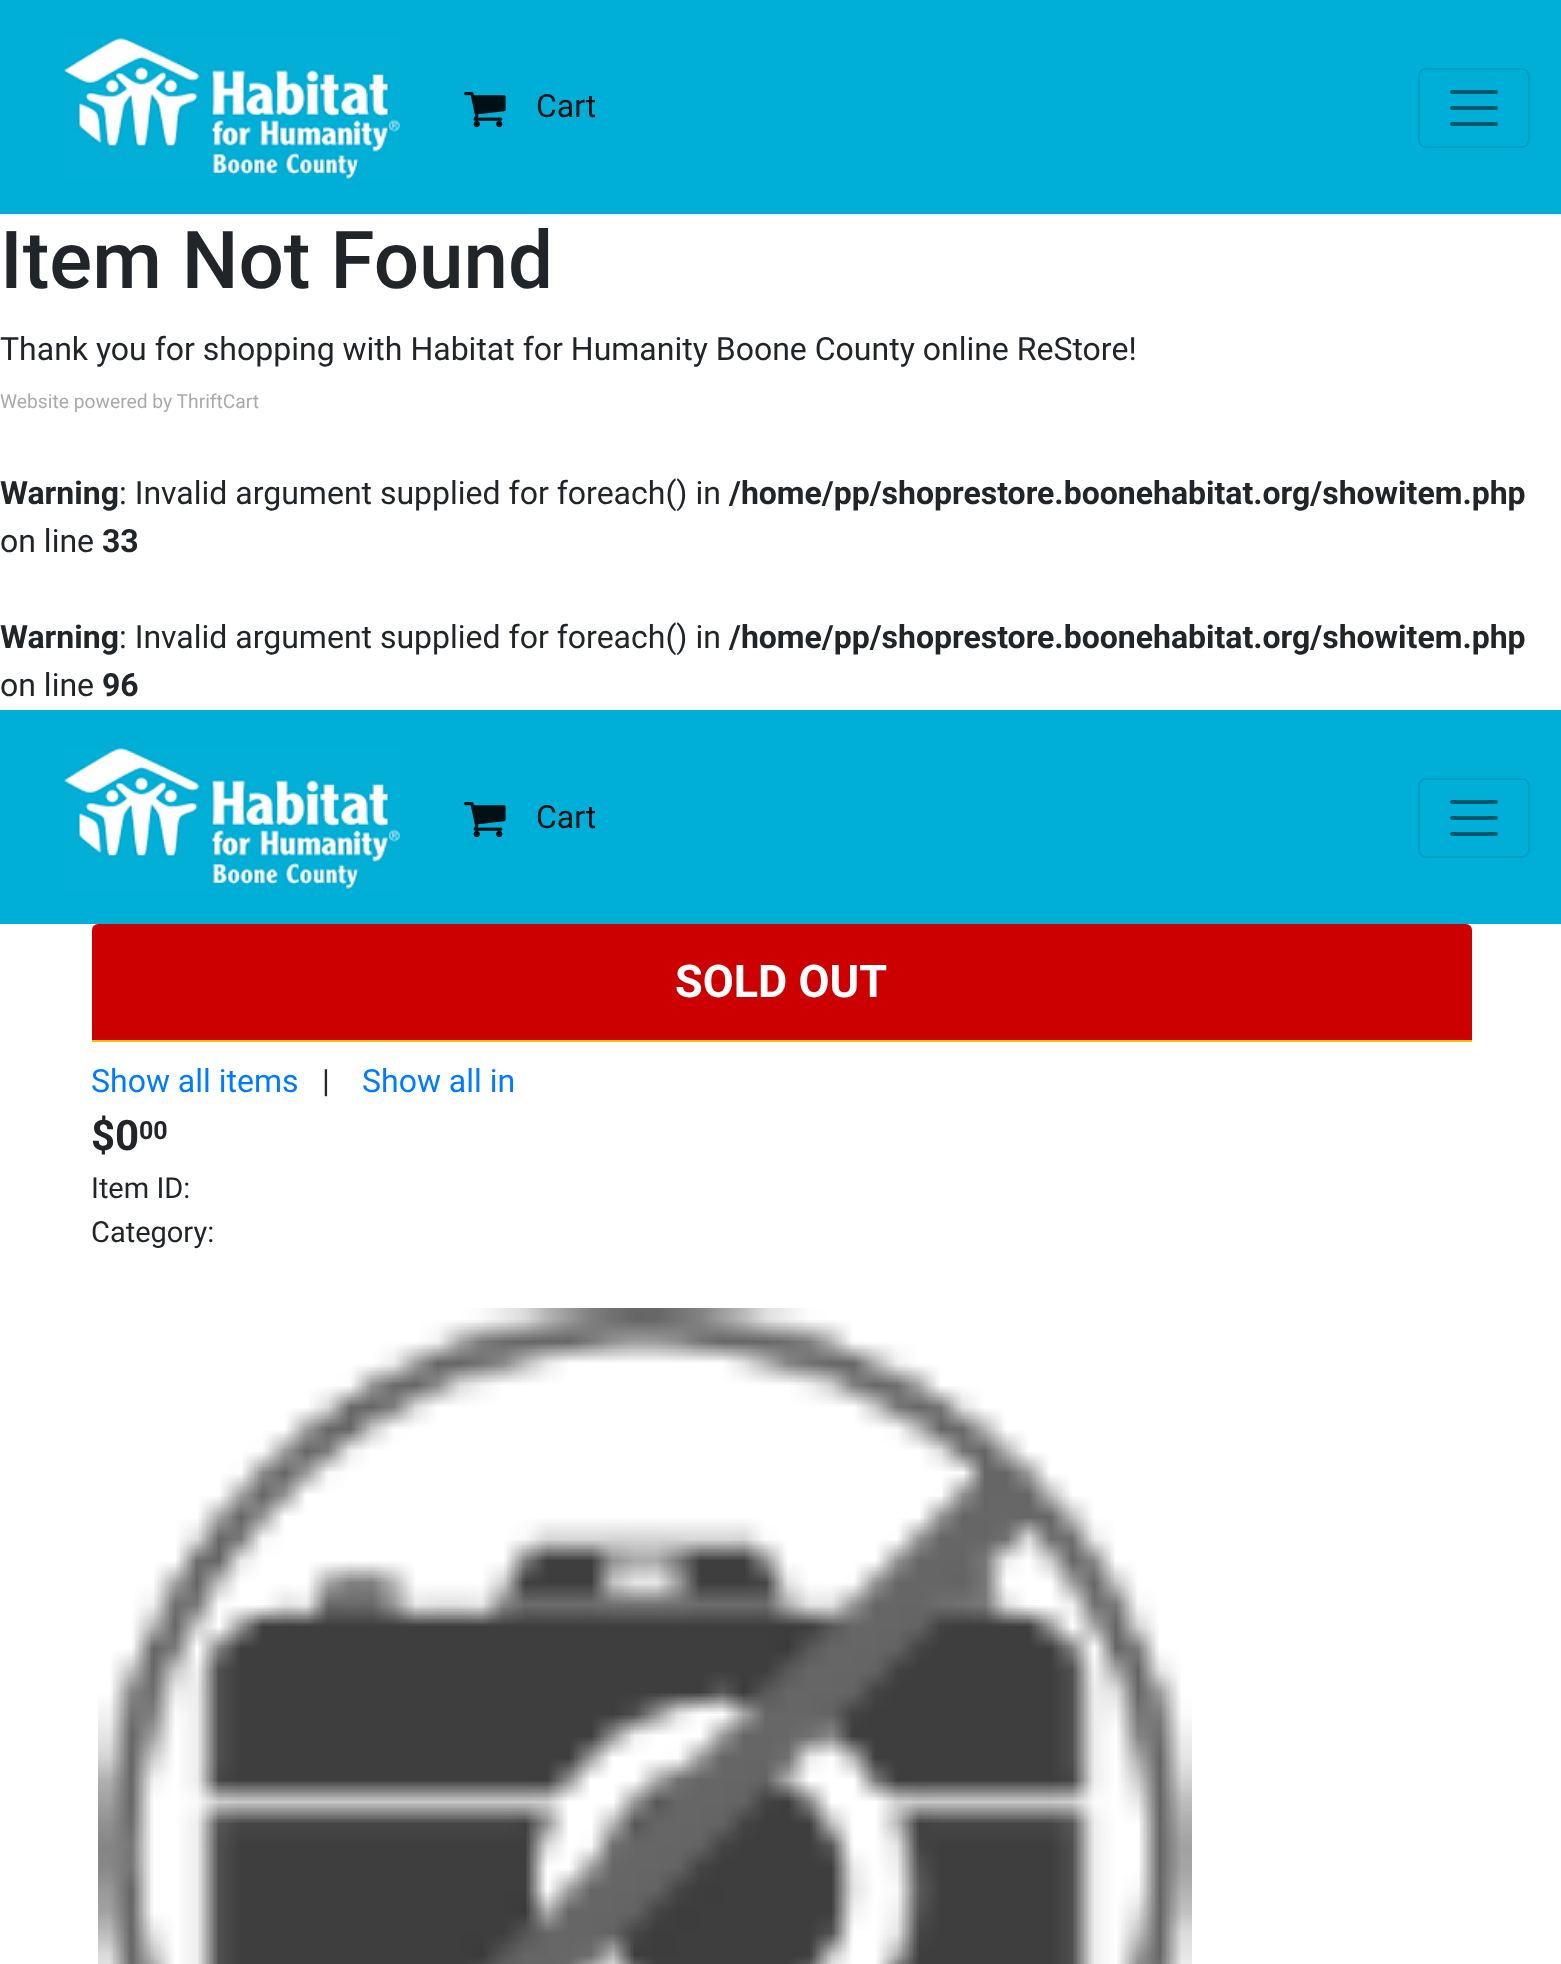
<!DOCTYPE html>
<meta charset="utf-8">
<style>body { margin: 0 } canvas { display: block }</style>
<canvas id="canvas" width="1561" height="1964"></canvas>
<img id="img1" src="images/1.png" hidden>
<img id="img2" src="images/2.png" hidden>
<img id="img3" src="images/3.png" hidden>
<script>
window.onload = function () {
    const canvas = document.getElementById('canvas');
    const context = canvas.getContext('2d');
    context.miterLimit = 4;
    context.fontKerning = 'normal';

    context.fillStyle = 'rgb(255, 255, 255)';
    context.fillRect(0, 0, 1561, 1964);
    context.fillStyle = 'rgb(0, 175, 215)';
    context.fillRect(0, 0, 1561, 214);
    context.drawImage(document.getElementById('img1'), 63, 37, 338, 143);
    context.drawImage(document.getElementById('img2'), 464, 92, 42, 36);
    context.beginPath();
    context.roundRect(1419, 69, 110, 78, 7);
    context.strokeStyle = 'rgb(0, 158, 194)';
    context.lineWidth = 2;
    context.stroke();
    context.beginPath();
    context.moveTo(1452, 92);
    context.lineTo(1496, 92);
    context.moveTo(1452, 108);
    context.lineTo(1496, 108);
    context.moveTo(1452, 124);
    context.lineTo(1496, 124);
    context.strokeStyle = 'rgb(0, 88, 108)';
    context.lineWidth = 4;
    context.lineCap = 'round';
    context.stroke();
    context.fillRect(0, 710, 1561, 214);
    context.drawImage(document.getElementById('img1'), 63, 747, 338, 143);
    context.drawImage(document.getElementById('img2'), 464, 802, 42, 36);
    context.beginPath();
    context.roundRect(1419, 779, 110, 78, 7);
    context.strokeStyle = 'rgb(0, 158, 194)';
    context.lineWidth = 2;
    context.stroke();
    context.beginPath();
    context.moveTo(1452, 802);
    context.lineTo(1496, 802);
    context.moveTo(1452, 818);
    context.lineTo(1496, 818);
    context.moveTo(1452, 834);
    context.lineTo(1496, 834);
    context.strokeStyle = 'rgb(0, 88, 108)';
    context.lineWidth = 4;
    context.stroke();
    context.fillStyle = 'rgb(204, 0, 0)';
    context.beginPath();
    context.roundRect(92, 924, 1380, 118, [6, 6, 0, 0]);
    context.fill();
    context.fillStyle = 'rgb(255, 193, 7)';
    context.fillRect(92, 1040, 1380, 2);
    context.drawImage(document.getElementById('img3'), 98, 1308, 1094, 656);
    context.font = '32px Roboto';
    context.fillStyle = 'rgb(0, 18, 22)';
    context.fillText('Cart', 536, 117);
    context.font = '500 80px Roboto';
    context.fillStyle = 'rgb(33, 37, 41)';
    context.fillText('Item Not Found', 0, 288);
    context.font = '32px Roboto';
    context.fillText('Thank you for shopping with Habitat for Humanity Boone County online ReStore!', 0, 360);
    context.font = '19.25px Roboto';
    context.fillStyle = 'rgb(170, 170, 170)';
    context.fillText('Website powered by ThriftCart', 0, 408);
    context.font = 'bold 32px Roboto';
    context.fillStyle = 'rgb(33, 37, 41)';
    context.fillText('Warning', 0, 504);
    context.font = '32px Roboto';
    context.fillText(': Invalid argument supplied for foreach() in', 119, 504);
    context.font = 'bold 32px Roboto';
    context.fillText('/home/pp/shoprestore.boonehabitat.org/showitem.php', 729, 504);
    context.font = '32px Roboto';
    context.fillText('on line', 0, 552);
    context.font = 'bold 32px Roboto';
    context.fillText('33', 102, 552);
    context.fillText('Warning', 0, 648);
    context.font = '32px Roboto';
    context.fillText(': Invalid argument supplied for foreach() in', 119, 648);
    context.font = 'bold 32px Roboto';
    context.fillText('/home/pp/shoprestore.boonehabitat.org/showitem.php', 729, 648);
    context.font = '32px Roboto';
    context.fillText('on line', 0, 696);
    context.font = 'bold 32px Roboto';
    context.fillText('96', 102, 696);
    context.font = '32px Roboto';
    context.fillStyle = 'rgb(0, 18, 22)';
    context.fillText('Cart', 536, 828);
    context.font = 'bold 45px Roboto';
    context.fillStyle = 'rgb(255, 255, 255)';
    context.fillText('SOLD OUT', 675, 997);
    context.font = '32px Roboto';
    context.fillStyle = 'rgb(0, 123, 255)';
    context.fillText('Show all items', 91, 1092);
    context.fillStyle = 'rgb(33, 37, 41)';
    context.fillText('|', 322, 1092);
    context.fillStyle = 'rgb(0, 123, 255)';
    context.fillText('Show all in', 362, 1092);
    context.font = 'bold 42px Roboto';
    context.fillStyle = 'rgb(33, 37, 41)';
    context.fillText('$0', 91, 1150);
    context.font = 'bold 25px Roboto';
    context.fillText('00', 139, 1139);
    context.font = '29px Roboto';
    context.fillText('Item ID:', 91, 1198);
    context.fillText('Category:', 91, 1242);
};
</script>
